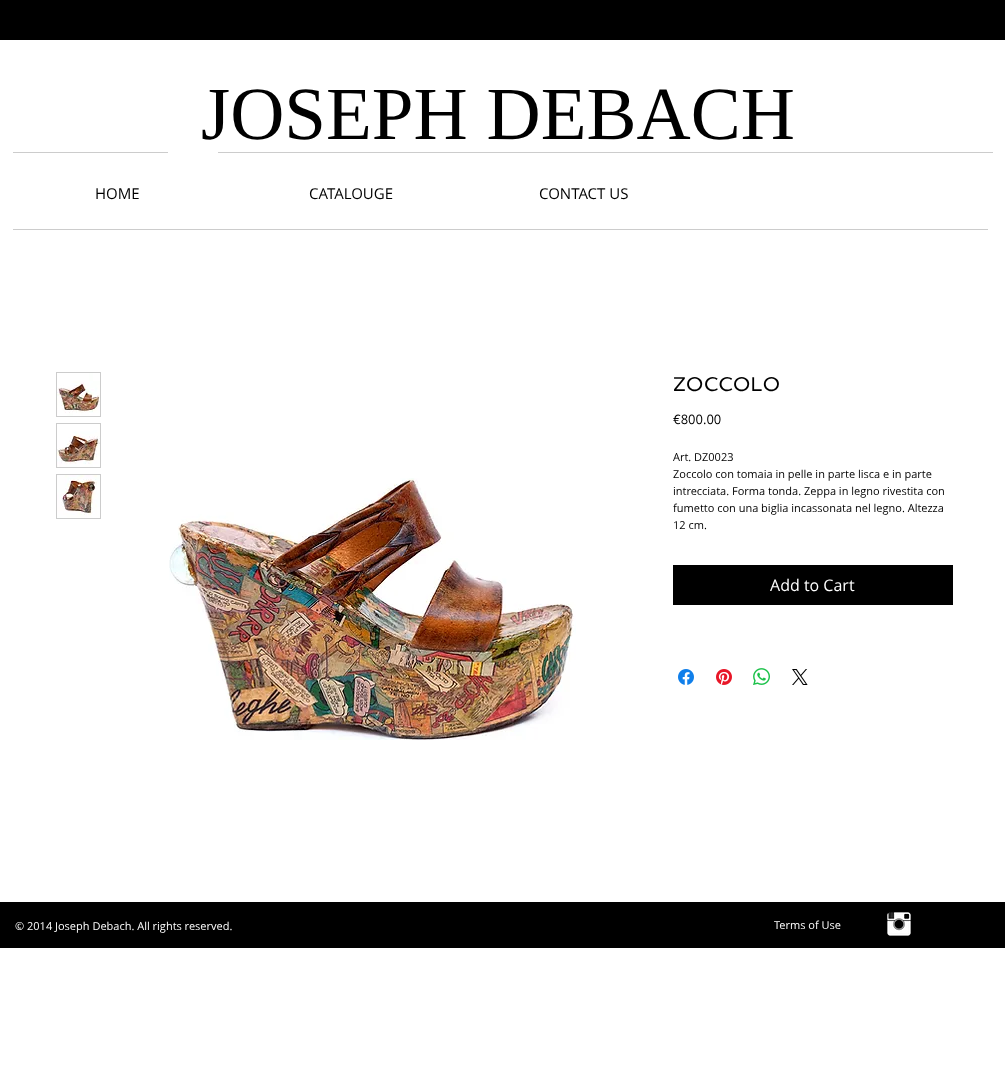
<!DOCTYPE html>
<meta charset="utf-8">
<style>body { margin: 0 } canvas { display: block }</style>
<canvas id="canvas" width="1005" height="1087"></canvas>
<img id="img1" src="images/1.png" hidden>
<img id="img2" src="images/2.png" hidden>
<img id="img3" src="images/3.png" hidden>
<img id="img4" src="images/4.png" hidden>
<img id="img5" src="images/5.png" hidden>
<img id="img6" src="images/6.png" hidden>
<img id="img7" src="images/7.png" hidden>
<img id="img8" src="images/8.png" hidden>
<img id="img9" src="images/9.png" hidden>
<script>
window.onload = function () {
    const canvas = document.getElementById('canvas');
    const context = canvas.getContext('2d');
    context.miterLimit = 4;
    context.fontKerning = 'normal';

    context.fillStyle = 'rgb(255, 255, 255)';
    context.fillRect(0, 0, 1005, 1087);
    context.fillStyle = 'rgb(0, 0, 0)';
    context.fillRect(0, 0, 1005, 40);
    context.fillStyle = 'rgb(204, 204, 204)';
    context.fillRect(13, 152, 155, 1);
    context.fillRect(218, 152, 775, 1);
    context.fillRect(13, 229, 975, 1);
    context.fillRect(56, 372, 45, 45);
    context.drawImage(document.getElementById('img1'), 57, 373, 43, 43);
    context.fillRect(56, 423, 45, 45);
    context.drawImage(document.getElementById('img2'), 57, 424, 43, 43);
    context.fillRect(56, 474, 45, 45);
    context.drawImage(document.getElementById('img3'), 57, 475, 43, 43);
    context.drawImage(document.getElementById('img4'), 169, 478, 407, 262);
    context.fillStyle = 'rgb(0, 0, 0)';
    context.fillRect(673, 565, 280, 40);
    context.drawImage(document.getElementById('img5'), 678, 669, 16, 16);
    context.drawImage(document.getElementById('img6'), 716, 669, 16, 16);
    context.drawImage(document.getElementById('img7'), 753, 668, 17, 17);
    context.drawImage(document.getElementById('img8'), 792, 669, 16, 16);
    context.fillRect(0, 902, 1005, 46);
    context.drawImage(document.getElementById('img9'), 887, 912, 24, 24);
    context.font = '75px Liberation Serif';
    context.fillText('JOSEPH DEBACH', 201, 139);
    context.font = '15px Open Sans';
    context.fillText('HOME', 95, 199);
    context.fillText('CATALOUGE', 309, 199);
    context.fillText('CONTACT US', 539, 199);
    context.font = '20px Spinnaker';
    context.fillText('ZOCCOLO', 673, 391);
    context.font = '13px Open Sans';
    context.fillText('€800.00', 673, 424);
    context.font = '11px Open Sans';
    context.fillText('Art. DZ0023', 673, 461);
    context.fillText('Zoccolo con tomaia in pelle in parte lisca e in parte', 673, 478);
    context.fillText('intrecciata. Forma tonda. Zeppa in legno rivestita con', 673, 495);
    context.fillText('fumetto con una biglia incassonata nel legno. Altezza', 673, 512);
    context.fillText('12 cm.', 673, 529);
    context.font = '16px Open Sans';
    context.fillStyle = 'rgb(255, 255, 255)';
    context.fillText('Add to Cart', 770, 591);
    context.font = '11px Open Sans';
    context.fillText('© 2014 Joseph Debach. All rights reserved.', 15, 930);
    context.fillText('Terms of Use', 774, 929);
};
</script>
